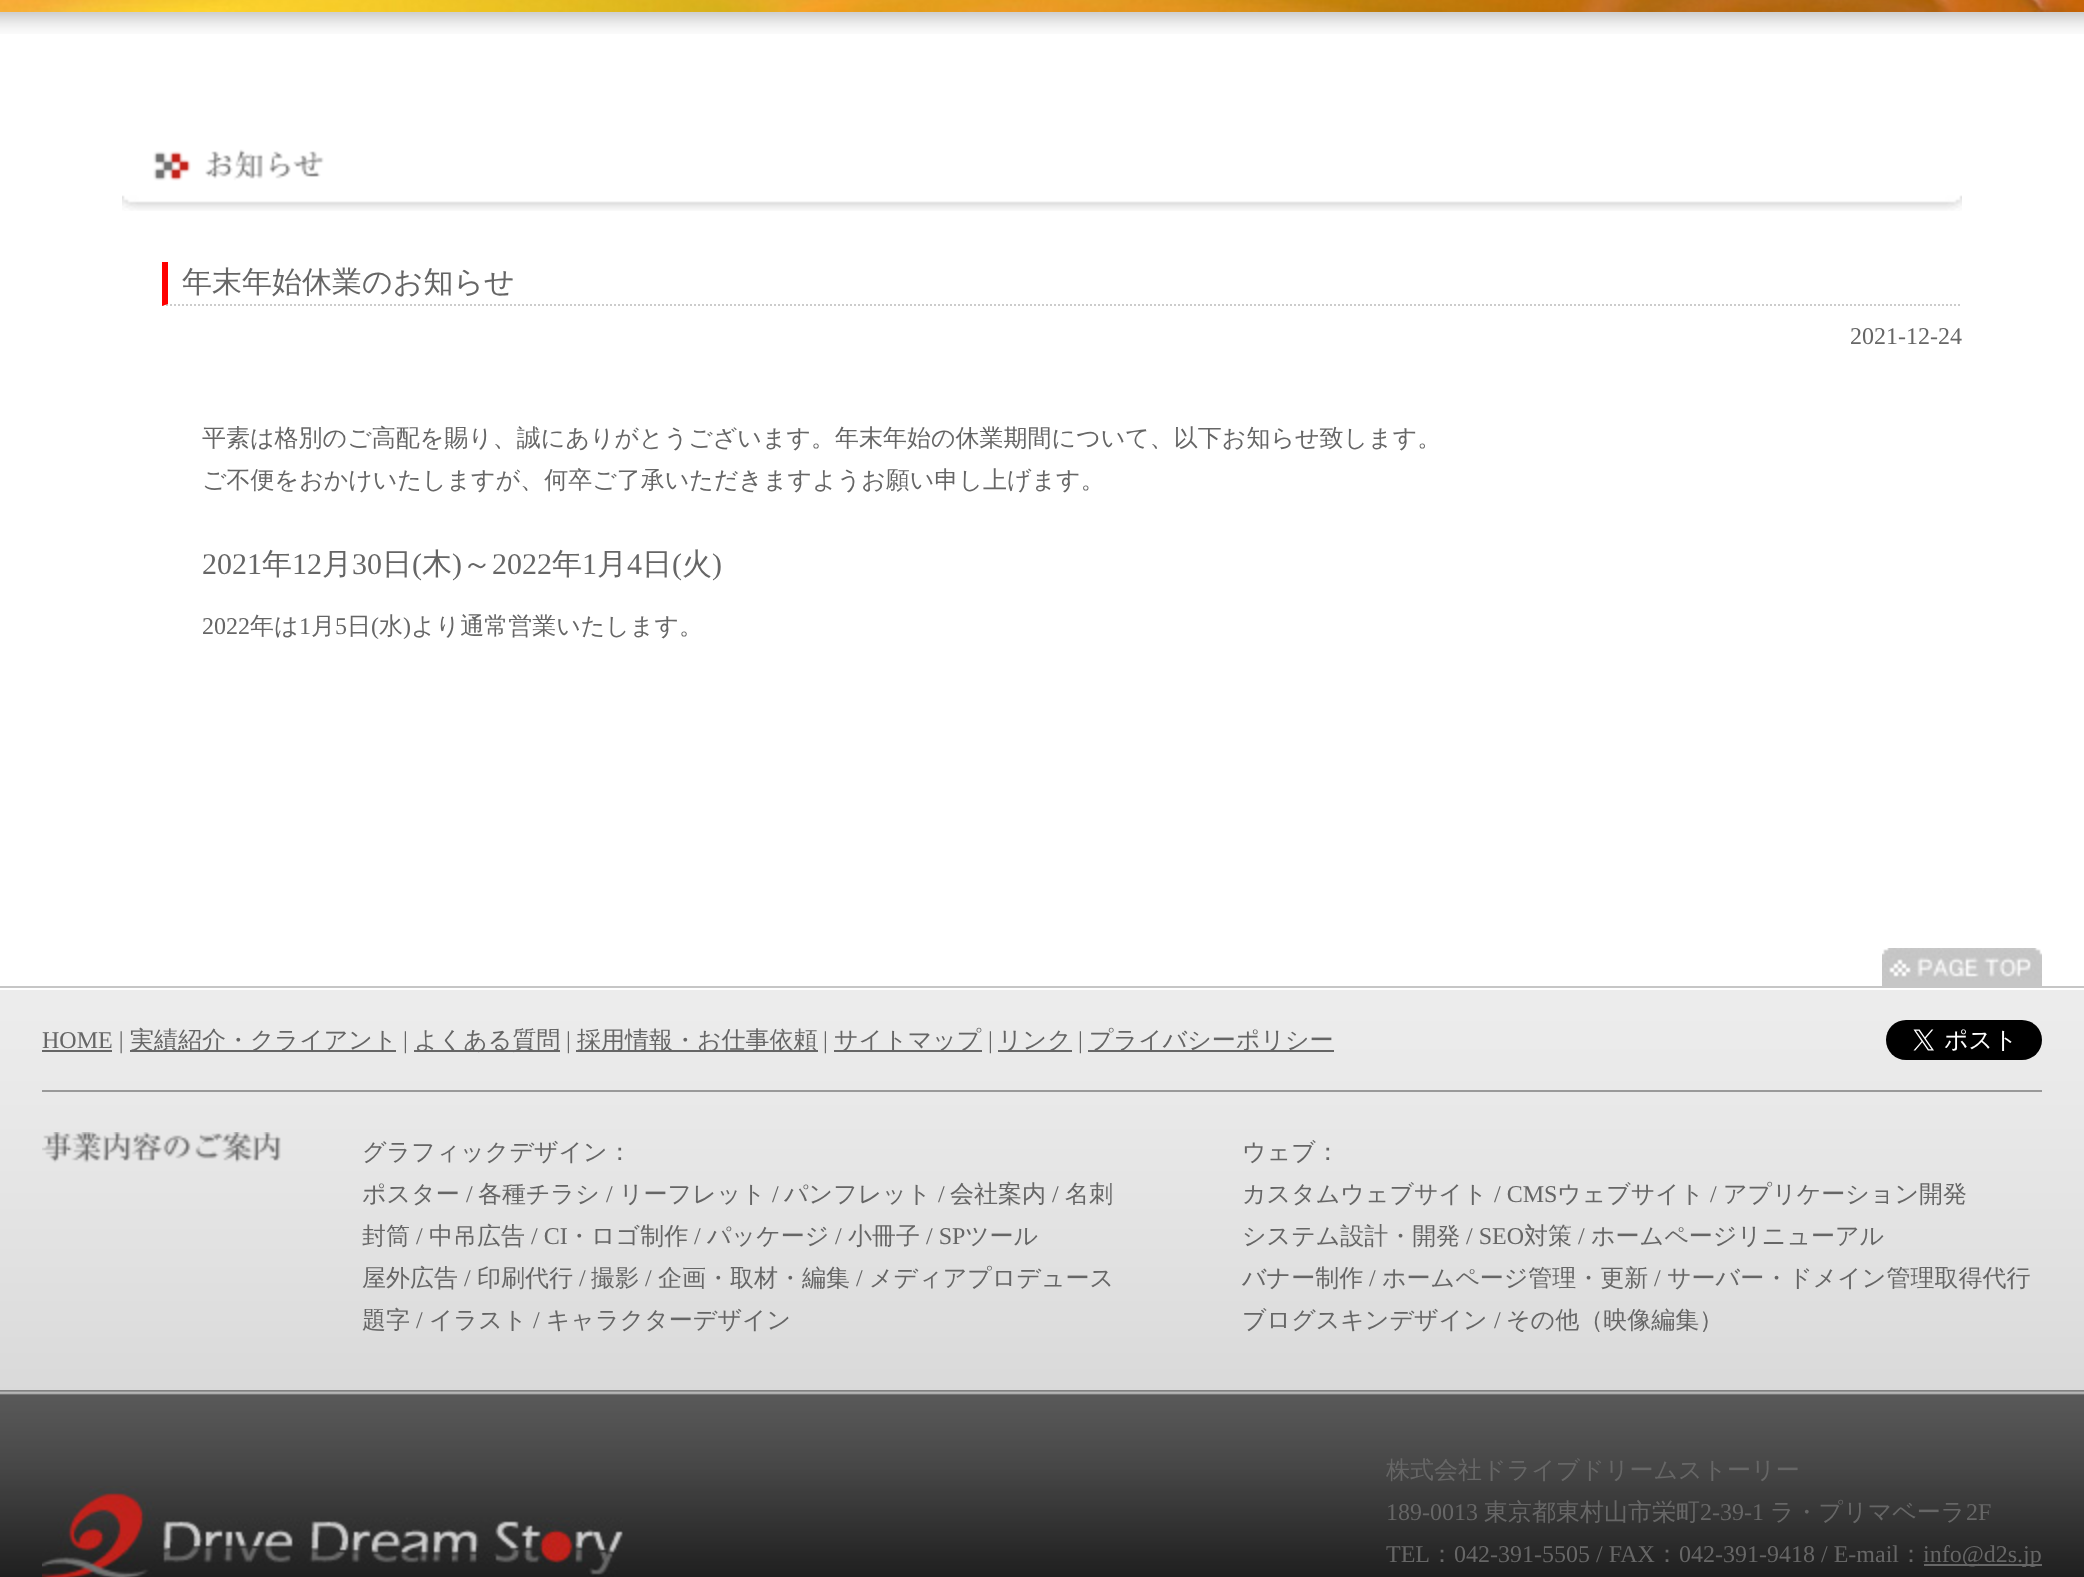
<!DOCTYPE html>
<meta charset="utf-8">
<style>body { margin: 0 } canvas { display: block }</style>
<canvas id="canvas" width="2084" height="1577"></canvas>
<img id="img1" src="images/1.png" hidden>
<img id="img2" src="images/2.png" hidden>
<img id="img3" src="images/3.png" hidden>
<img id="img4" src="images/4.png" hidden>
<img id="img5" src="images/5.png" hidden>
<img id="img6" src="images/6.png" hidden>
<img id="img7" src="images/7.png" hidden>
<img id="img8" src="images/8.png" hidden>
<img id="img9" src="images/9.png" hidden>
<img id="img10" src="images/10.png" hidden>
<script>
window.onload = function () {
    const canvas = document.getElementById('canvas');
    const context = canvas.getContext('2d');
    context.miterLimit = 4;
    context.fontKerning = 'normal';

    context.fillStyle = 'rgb(255, 255, 255)';
    context.fillRect(0, 0, 2084, 1577);
    context.drawImage(document.getElementById('img1'), 0, 0, 2084, 12);
    context.drawImage(document.getElementById('img2'), 0, 12, 2084, 22);
    context.drawImage(document.getElementById('img3'), 122, 195, 1840, 16);
    context.drawImage(document.getElementById('img4'), 153, 149, 171, 32);
    context.beginPath();
    context.moveTo(162, 305);
    context.lineTo(1962, 305);
    context.strokeStyle = 'rgb(204, 204, 204)';
    context.lineWidth = 2;
    context.setLineDash([2, 2]);
    context.stroke();
    context.fillStyle = 'rgb(255, 0, 0)';
    context.beginPath();
    context.moveTo(162, 306);
    context.lineTo(162, 262);
    context.lineTo(168, 262);
    context.lineTo(168, 304);
    context.closePath();
    context.fill();
    context.fillStyle = 'rgb(198, 198, 198)';
    context.fillRect(0, 986, 2084, 2);
    context.drawImage(document.getElementById('img5'), 1882, 948, 160, 38);
    context.drawImage(document.getElementById('img6'), 0, 990, 2084, 400);
    context.fillStyle = 'rgb(153, 153, 153)';
    context.fillRect(42, 1090, 2000, 2);
    context.fillStyle = 'rgb(102, 102, 102)';
    context.fillRect(42, 1050, 70, 2);
    context.fillRect(130, 1050, 266, 2);
    context.fillRect(414, 1050, 146, 2);
    context.fillRect(576, 1050, 242, 2);
    context.fillRect(834, 1050, 148, 2);
    context.fillRect(998, 1050, 74, 2);
    context.fillRect(1088, 1050, 246, 2);
    context.drawImage(document.getElementById('img7'), 1886, 1020, 156, 40);
    context.drawImage(document.getElementById('img8'), 42, 1132, 239, 31);
    context.drawImage(document.getElementById('img9'), 0, 1390, 2084, 187);
    context.drawImage(document.getElementById('img10'), 42, 1486, 581, 91);
    context.fillRect(1924, 1564, 118, 2);
    context.font = '500 30px WenQuanYi Zen Hei';
    context.fillText('年末年始休業のお知らせ', 182, 292);
    context.font = '24px Liberation Serif';
    context.fillText('2021-12-24', 1850, 344);
    context.font = '500 24px WenQuanYi Zen Hei';
    context.fillText('平素は格別のご高配を賜り、誠にありがとうございます。年末年始の休業期間について、以下お知らせ致します。', 202, 446);
    context.fillText('ご不便をおかけいたしますが、何卒ご了承いただきますようお願い申し上げます。', 202, 488);
    context.font = '30px Liberation Serif';
    context.fillText('2021', 202, 574);
    context.font = '500 30px WenQuanYi Zen Hei';
    context.fillText('年', 262, 574);
    context.font = '30px Liberation Serif';
    context.fillText('12', 292, 574);
    context.font = '500 30px WenQuanYi Zen Hei';
    context.fillText('月', 322, 574);
    context.font = '30px Liberation Serif';
    context.fillText('30', 352, 574);
    context.font = '500 30px WenQuanYi Zen Hei';
    context.fillText('日', 382, 574);
    context.font = '30px Liberation Serif';
    context.fillText('(', 412, 574);
    context.font = '500 30px WenQuanYi Zen Hei';
    context.fillText('木', 422, 574);
    context.font = '30px Liberation Serif';
    context.fillText(')', 452, 574);
    context.font = '500 30px WenQuanYi Zen Hei';
    context.fillText('～', 462, 574);
    context.font = '30px Liberation Serif';
    context.fillText('2022', 492, 574);
    context.font = '500 30px WenQuanYi Zen Hei';
    context.fillText('年', 552, 574);
    context.font = '30px Liberation Serif';
    context.fillText('1', 582, 574);
    context.font = '500 30px WenQuanYi Zen Hei';
    context.fillText('月', 597, 574);
    context.font = '30px Liberation Serif';
    context.fillText('4', 627, 574);
    context.font = '500 30px WenQuanYi Zen Hei';
    context.fillText('日', 642, 574);
    context.font = '30px Liberation Serif';
    context.fillText('(', 672, 574);
    context.font = '500 30px WenQuanYi Zen Hei';
    context.fillText('火', 682, 574);
    context.font = '30px Liberation Serif';
    context.fillText(')', 712, 574);
    context.font = '24px Liberation Serif';
    context.fillText('2022', 202, 634);
    context.font = '500 24px WenQuanYi Zen Hei';
    context.fillText('年は', 250, 634);
    context.font = '24px Liberation Serif';
    context.fillText('1', 299, 634);
    context.font = '500 24px WenQuanYi Zen Hei';
    context.fillText('月', 311, 634);
    context.font = '24px Liberation Serif';
    context.fillText('5', 335, 634);
    context.font = '500 24px WenQuanYi Zen Hei';
    context.fillText('日', 347, 634);
    context.font = '24px Liberation Serif';
    context.fillText('(', 371, 634);
    context.font = '500 24px WenQuanYi Zen Hei';
    context.fillText('水', 379, 634);
    context.font = '24px Liberation Serif';
    context.fillText(')', 403, 634);
    context.font = '500 24px WenQuanYi Zen Hei';
    context.fillText('より通常営業いたします。', 411, 634);
    context.font = '24px Liberation Serif';
    context.fillText('HOME |', 42, 1048);
    context.font = '500 24px WenQuanYi Zen Hei';
    context.fillText('実績紹介・クライアント', 130, 1048);
    context.font = '24px Liberation Serif';
    context.fillText('|', 403, 1048);
    context.font = '500 24px WenQuanYi Zen Hei';
    context.fillText('よくある質問', 414, 1048);
    context.font = '24px Liberation Serif';
    context.fillText('|', 566, 1048);
    context.font = '500 24px WenQuanYi Zen Hei';
    context.fillText('採用情報・お仕事依頼', 577, 1048);
    context.font = '24px Liberation Serif';
    context.fillText('|', 823, 1048);
    context.font = '500 24px WenQuanYi Zen Hei';
    context.fillText('サイトマップ', 834, 1048);
    context.font = '24px Liberation Serif';
    context.fillText('|', 988, 1048);
    context.font = '500 24px WenQuanYi Zen Hei';
    context.fillText('リンク', 998, 1048);
    context.font = '24px Liberation Serif';
    context.fillText('|', 1078, 1048);
    context.font = '500 24px WenQuanYi Zen Hei';
    context.fillText('プライバシーポリシー', 1089, 1048);
    context.fillText('グラフィックデザイン：', 362, 1160);
    context.fillText('ポスター', 362, 1202);
    context.font = '24px Liberation Serif';
    context.fillText('/', 466, 1202);
    context.font = '500 24px WenQuanYi Zen Hei';
    context.fillText('各種チラシ', 478, 1202);
    context.font = '24px Liberation Serif';
    context.fillText('/', 606, 1202);
    context.font = '500 24px WenQuanYi Zen Hei';
    context.fillText('リーフレット', 619, 1202);
    context.font = '24px Liberation Serif';
    context.fillText('/', 772, 1202);
    context.font = '500 24px WenQuanYi Zen Hei';
    context.fillText('パンフレット', 784, 1202);
    context.font = '24px Liberation Serif';
    context.fillText('/', 938, 1202);
    context.font = '500 24px WenQuanYi Zen Hei';
    context.fillText('会社案内', 950, 1202);
    context.font = '24px Liberation Serif';
    context.fillText('/', 1052, 1202);
    context.font = '500 24px WenQuanYi Zen Hei';
    context.fillText('名刺', 1065, 1202);
    context.fillText('封筒', 362, 1244);
    context.font = '24px Liberation Serif';
    context.fillText('/', 416, 1244);
    context.font = '500 24px WenQuanYi Zen Hei';
    context.fillText('中吊広告', 429, 1244);
    context.font = '24px Liberation Serif';
    context.fillText('/ CI', 531, 1244);
    context.font = '500 24px WenQuanYi Zen Hei';
    context.fillText('・ロゴ制作', 567, 1244);
    context.font = '24px Liberation Serif';
    context.fillText('/', 694, 1244);
    context.font = '500 24px WenQuanYi Zen Hei';
    context.fillText('パッケージ', 707, 1244);
    context.font = '24px Liberation Serif';
    context.fillText('/', 835, 1244);
    context.font = '500 24px WenQuanYi Zen Hei';
    context.fillText('小冊子', 848, 1244);
    context.font = '24px Liberation Serif';
    context.fillText('/ SP', 926, 1244);
    context.font = '500 24px WenQuanYi Zen Hei';
    context.fillText('ツール', 965, 1244);
    context.fillText('屋外広告', 362, 1286);
    context.font = '24px Liberation Serif';
    context.fillText('/', 464, 1286);
    context.font = '500 24px WenQuanYi Zen Hei';
    context.fillText('印刷代行', 477, 1286);
    context.font = '24px Liberation Serif';
    context.fillText('/', 579, 1286);
    context.font = '500 24px WenQuanYi Zen Hei';
    context.fillText('撮影', 591, 1286);
    context.font = '24px Liberation Serif';
    context.fillText('/', 645, 1286);
    context.font = '500 24px WenQuanYi Zen Hei';
    context.fillText('企画・取材・編集', 658, 1286);
    context.font = '24px Liberation Serif';
    context.fillText('/', 856, 1286);
    context.font = '500 24px WenQuanYi Zen Hei';
    context.fillText('メディアプロデュース', 869, 1286);
    context.fillText('題字', 362, 1328);
    context.font = '24px Liberation Serif';
    context.fillText('/', 416, 1328);
    context.font = '500 24px WenQuanYi Zen Hei';
    context.fillText('イラスト', 429, 1328);
    context.font = '24px Liberation Serif';
    context.fillText('/', 533, 1328);
    context.font = '500 24px WenQuanYi Zen Hei';
    context.fillText('キャラクターデザイン', 546, 1328);
    context.fillText('ウェブ：', 1242, 1160);
    context.fillText('カスタムウェブサイト', 1242, 1202);
    context.font = '24px Liberation Serif';
    context.fillText('/ CMS', 1494, 1202);
    context.font = '500 24px WenQuanYi Zen Hei';
    context.fillText('ウェブサイト', 1557, 1202);
    context.font = '24px Liberation Serif';
    context.fillText('/', 1710, 1202);
    context.font = '500 24px WenQuanYi Zen Hei';
    context.fillText('アプリケーション開発', 1723, 1202);
    context.fillText('システム設計・開発', 1242, 1244);
    context.font = '24px Liberation Serif';
    context.fillText('/ SEO', 1466, 1244);
    context.font = '500 24px WenQuanYi Zen Hei';
    context.fillText('対策', 1524, 1244);
    context.font = '24px Liberation Serif';
    context.fillText('/', 1578, 1244);
    context.font = '500 24px WenQuanYi Zen Hei';
    context.fillText('ホームページリニューアル', 1591, 1244);
    context.fillText('バナー制作', 1242, 1286);
    context.font = '24px Liberation Serif';
    context.fillText('/', 1369, 1286);
    context.font = '500 24px WenQuanYi Zen Hei';
    context.fillText('ホームページ管理・更新', 1382, 1286);
    context.font = '24px Liberation Serif';
    context.fillText('/', 1654, 1286);
    context.font = '500 24px WenQuanYi Zen Hei';
    context.fillText('サーバー・ドメイン管理取得代行', 1667, 1286);
    context.fillText('ブログスキンデザイン', 1242, 1328);
    context.font = '24px Liberation Serif';
    context.fillText('/', 1494, 1328);
    context.font = '500 24px WenQuanYi Zen Hei';
    context.fillText('その他（映像編集）', 1506, 1328);
    context.fillText('株式会社ドライブドリームストーリー', 1386, 1478);
    context.font = '24px Liberation Serif';
    context.fillText('189-0013', 1386, 1520);
    context.font = '500 24px WenQuanYi Zen Hei';
    context.fillText('東京都東村山市栄町', 1484, 1520);
    context.font = '24px Liberation Serif';
    context.fillText('2-39-1', 1700, 1520);
    context.font = '500 24px WenQuanYi Zen Hei';
    context.fillText('ラ・プリマベーラ', 1770, 1520);
    context.font = '24px Liberation Serif';
    context.fillText('2F', 1966, 1520);
    context.fillText('TEL', 1386, 1562);
    context.font = '500 24px WenQuanYi Zen Hei';
    context.fillText('：', 1430, 1562);
    context.font = '24px Liberation Serif';
    context.fillText('042-391-5505 / FAX', 1454, 1562);
    context.font = '500 24px WenQuanYi Zen Hei';
    context.fillText('：', 1655, 1562);
    context.font = '24px Liberation Serif';
    context.fillText('042-391-9418 / E-mail', 1679, 1562);
    context.font = '500 24px WenQuanYi Zen Hei';
    context.fillText('：', 1899, 1562);
    context.font = '24px Liberation Serif';
    context.fillText('info@d2s.jp', 1923, 1562);
};
</script>
